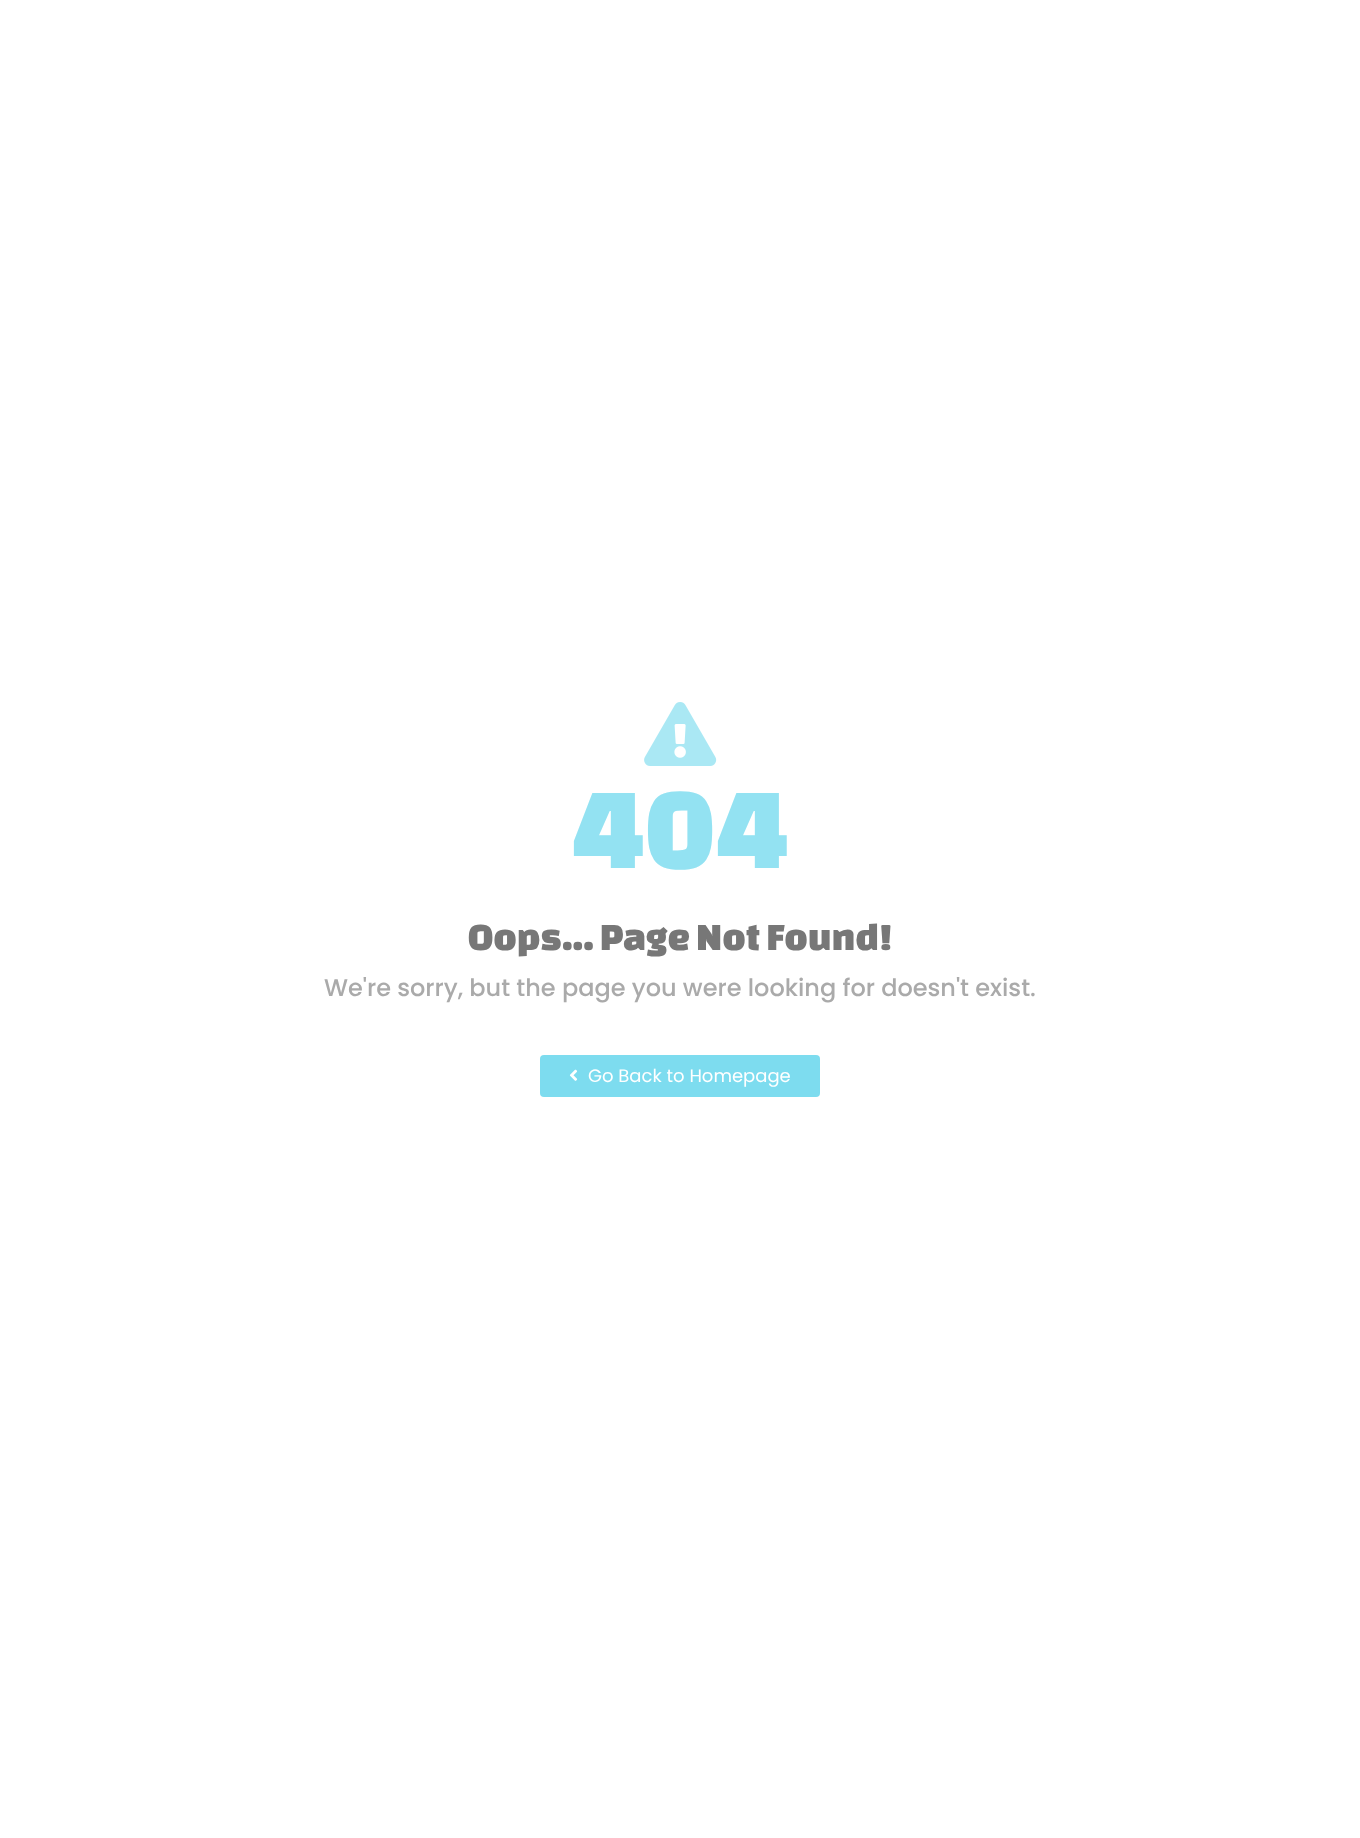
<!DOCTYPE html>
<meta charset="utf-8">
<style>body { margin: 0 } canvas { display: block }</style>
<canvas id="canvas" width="1360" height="1838"></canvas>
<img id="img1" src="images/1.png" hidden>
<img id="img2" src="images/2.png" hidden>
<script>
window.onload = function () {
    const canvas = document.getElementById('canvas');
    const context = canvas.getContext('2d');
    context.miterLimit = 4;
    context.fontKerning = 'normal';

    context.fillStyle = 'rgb(255, 255, 255)';
    context.fillRect(0, 0, 1360, 1838);
    context.drawImage(document.getElementById('img1'), 644, 702, 73, 64);
    context.fillStyle = 'rgb(125, 220, 239)';
    context.beginPath();
    context.roundRect(540, 1055, 280, 42, 4);
    context.fill();
    context.drawImage(document.getElementById('img2'), 569, 1069, 9, 12);
    context.font = '120px Changa One';
    context.fillStyle = 'rgb(147, 226, 242)';
    context.fillText('404', 572, 868);
    context.font = '40px Changa One';
    context.fillStyle = 'rgb(119, 119, 119)';
    context.fillText('Oops... Page Not Found!', 468, 950);
    context.font = '500 24px Poppins';
    context.fillStyle = 'rgb(170, 170, 170)';
    context.fillText('We\'re sorry, but the page you were looking for doesn\'t exist.', 324, 996);
    context.font = '18px Poppins';
    context.fillStyle = 'rgb(255, 255, 255)';
    context.fillText('Go Back to Homepage', 588, 1082);
};
</script>
